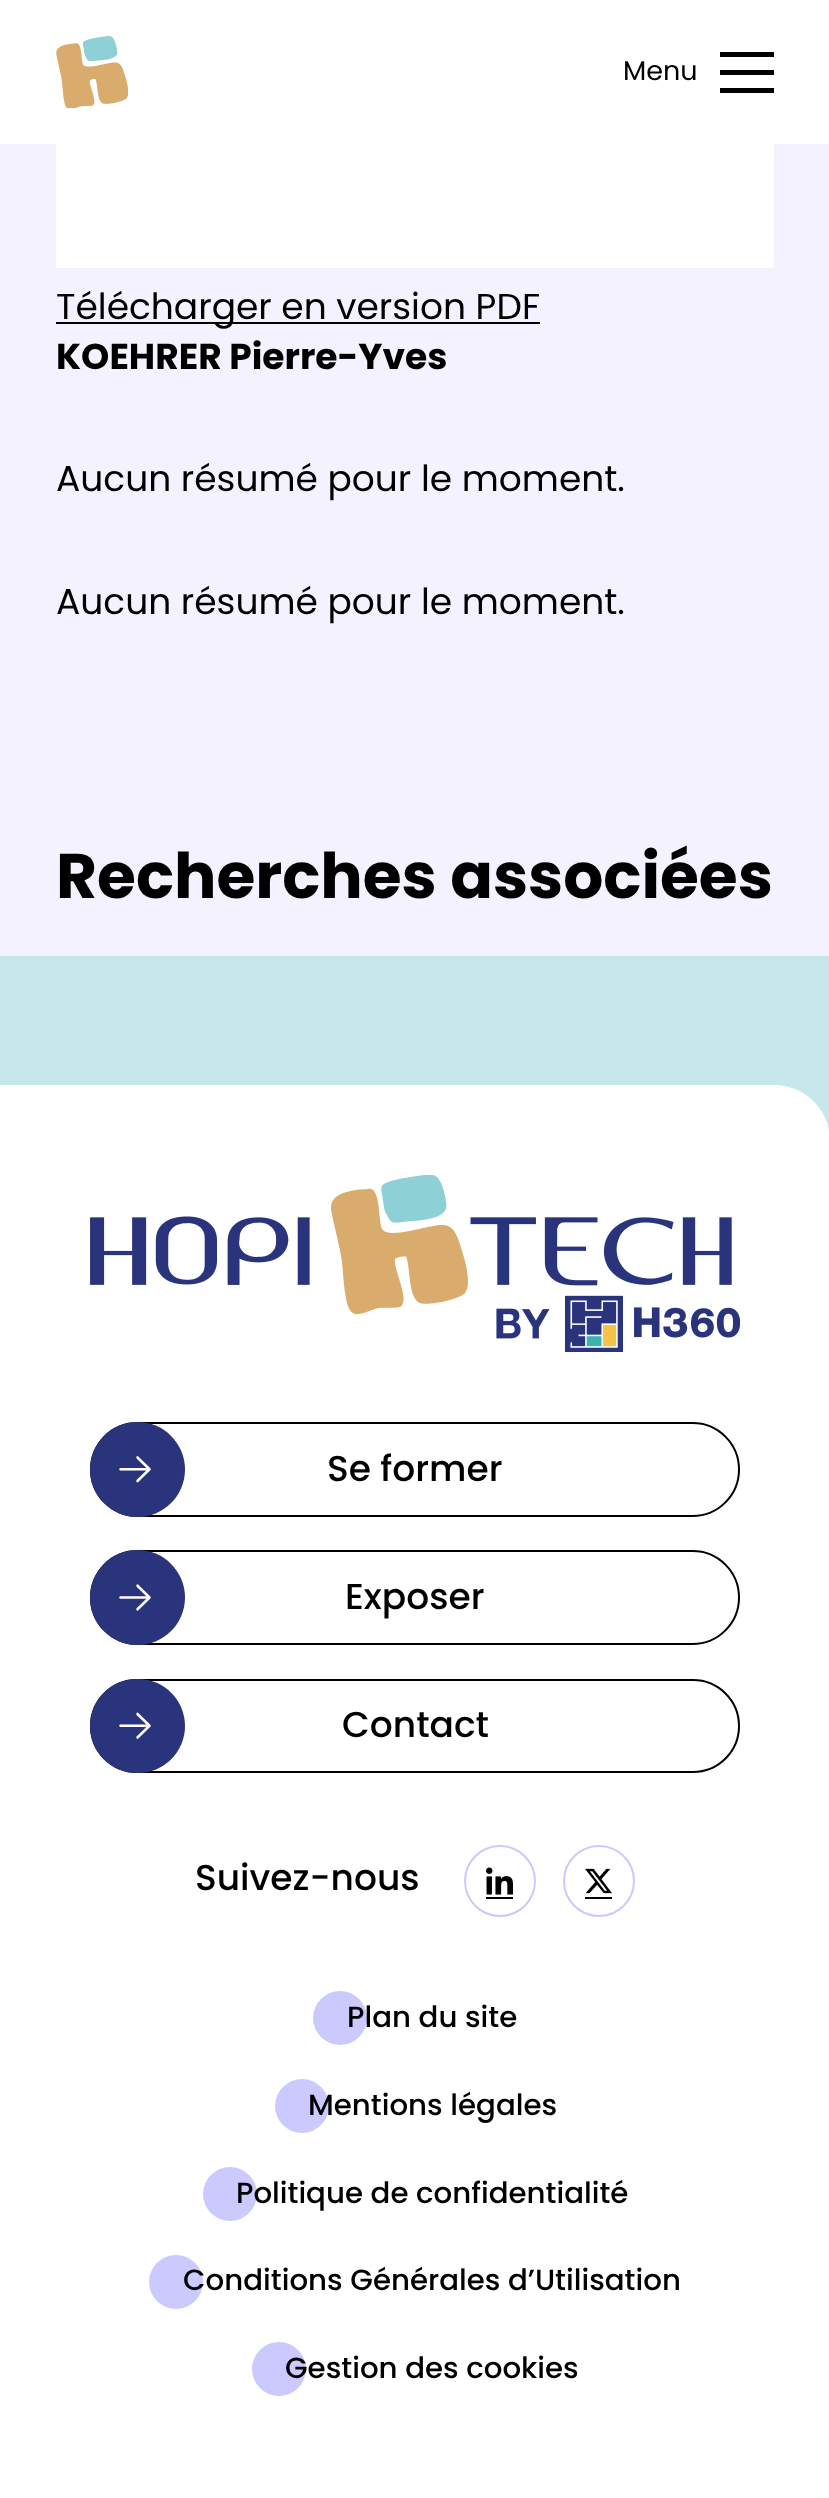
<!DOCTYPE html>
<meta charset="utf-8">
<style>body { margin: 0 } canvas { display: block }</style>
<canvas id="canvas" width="829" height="2498"></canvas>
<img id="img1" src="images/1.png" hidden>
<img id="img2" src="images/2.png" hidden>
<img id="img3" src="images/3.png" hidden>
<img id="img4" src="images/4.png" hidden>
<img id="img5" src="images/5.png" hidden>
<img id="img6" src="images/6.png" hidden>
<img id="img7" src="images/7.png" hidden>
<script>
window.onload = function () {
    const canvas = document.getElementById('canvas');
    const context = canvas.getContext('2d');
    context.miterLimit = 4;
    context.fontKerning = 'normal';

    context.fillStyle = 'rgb(244, 242, 255)';
    context.fillRect(0, 0, 829, 2498);
    context.fillStyle = 'rgb(198, 232, 234)';
    context.fillRect(0, 956, 829, 175);
    context.fillStyle = 'rgb(255, 255, 255)';
    context.fillRect(0, 0, 829, 144);
    context.drawImage(document.getElementById('img1'), 56, 36, 72, 72);
    context.fillStyle = 'rgb(0, 0, 0)';
    context.fillRect(720, 52, 54, 5);
    context.fillRect(720, 70, 54, 5);
    context.fillRect(720, 88, 54, 5);
    context.fillStyle = 'rgb(255, 255, 255)';
    context.fillRect(56, 144, 718, 124);
    context.fillStyle = 'rgb(0, 0, 0)';
    context.fillRect(56, 322, 484, 2);
    context.fillStyle = 'rgb(255, 255, 255)';
    context.beginPath();
    context.moveTo(0, 1085);
    context.lineTo(774, 1085);
    context.bezierCurveTo(805, 1085, 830, 1110, 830, 1141);
    context.lineTo(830, 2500);
    context.lineTo(0, 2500);
    context.closePath();
    context.fill();
    context.drawImage(document.getElementById('img2'), 90, 1175, 650, 177);
    context.beginPath();
    context.roundRect(91, 1423, 648, 93, 46.5);
    context.strokeStyle = 'rgb(0, 0, 0)';
    context.lineWidth = 2;
    context.stroke();
    context.fillStyle = 'rgb(41, 52, 125)';
    context.beginPath();
    context.arc(137.5, 1469.5, 47.5, 0, 2 * Math.PI);
    context.fill();
    context.drawImage(document.getElementById('img3'), 119, 1456, 32, 27);
    context.beginPath();
    context.roundRect(91, 1551, 648, 93, 46.5);
    context.stroke();
    context.beginPath();
    context.arc(137.5, 1597.5, 47.5, 0, 2 * Math.PI);
    context.fill();
    context.drawImage(document.getElementById('img4'), 119, 1584, 32, 27);
    context.beginPath();
    context.roundRect(91, 1680, 648, 92, 46);
    context.stroke();
    context.beginPath();
    context.roundRect(90, 1679, 95, 94, 47);
    context.fill();
    context.drawImage(document.getElementById('img5'), 119, 1712, 32, 27);
    context.beginPath();
    context.arc(500, 1881, 35, 0, 2 * Math.PI);
    context.strokeStyle = 'rgb(203, 201, 253)';
    context.stroke();
    context.drawImage(document.getElementById('img6'), 486, 1867, 27, 28);
    context.fillStyle = 'rgb(0, 0, 0)';
    context.fillRect(486, 1897, 27, 2);
    context.beginPath();
    context.arc(599, 1881, 35, 0, 2 * Math.PI);
    context.stroke();
    context.drawImage(document.getElementById('img7'), 585, 1868, 27, 26);
    context.fillRect(585, 1897, 27, 2);
    context.fillStyle = 'rgb(203, 201, 253)';
    context.beginPath();
    context.arc(340, 2018, 27, 0, 2 * Math.PI);
    context.fill();
    context.beginPath();
    context.arc(302, 2106, 27, 0, 2 * Math.PI);
    context.fill();
    context.beginPath();
    context.arc(230, 2194, 27, 0, 2 * Math.PI);
    context.fill();
    context.beginPath();
    context.arc(176, 2282, 27, 0, 2 * Math.PI);
    context.fill();
    context.beginPath();
    context.arc(279, 2369, 27, 0, 2 * Math.PI);
    context.fill();
    context.font = '27px Poppins';
    context.fillStyle = 'rgb(0, 0, 0)';
    context.fillText('Menu', 623, 80);
    context.font = '36px Poppins';
    context.fillText('Télécharger en version PDF', 56, 319);
    context.font = 'bold 36px Poppins';
    context.fillText('KOEHRER Pierre-Yves', 56, 369);
    context.font = '36px Poppins';
    context.fillText('Aucun résumé pour le moment.', 56, 491);
    context.fillText('Aucun résumé pour le moment.', 56, 614);
    context.font = 'bold 63px Poppins';
    context.fillText('Recherches associées', 56, 898);
    context.font = '500 36px Poppins';
    context.fillText('Se former', 327, 1481);
    context.fillText('Exposer', 345, 1609);
    context.fillText('Contact', 342, 1737);
    context.fillText('Suivez-nous', 195, 1890);
    context.font = '500 29.25px Poppins';
    context.fillText('Plan du site', 347, 2027);
    context.fillText('Mentions légales', 308, 2115);
    context.fillText('Politique de confidentialité', 236, 2203);
    context.fillText('Conditions Générales d’Utilisation', 183, 2290);
    context.fillText('Gestion des cookies', 285, 2378);
};
</script>
